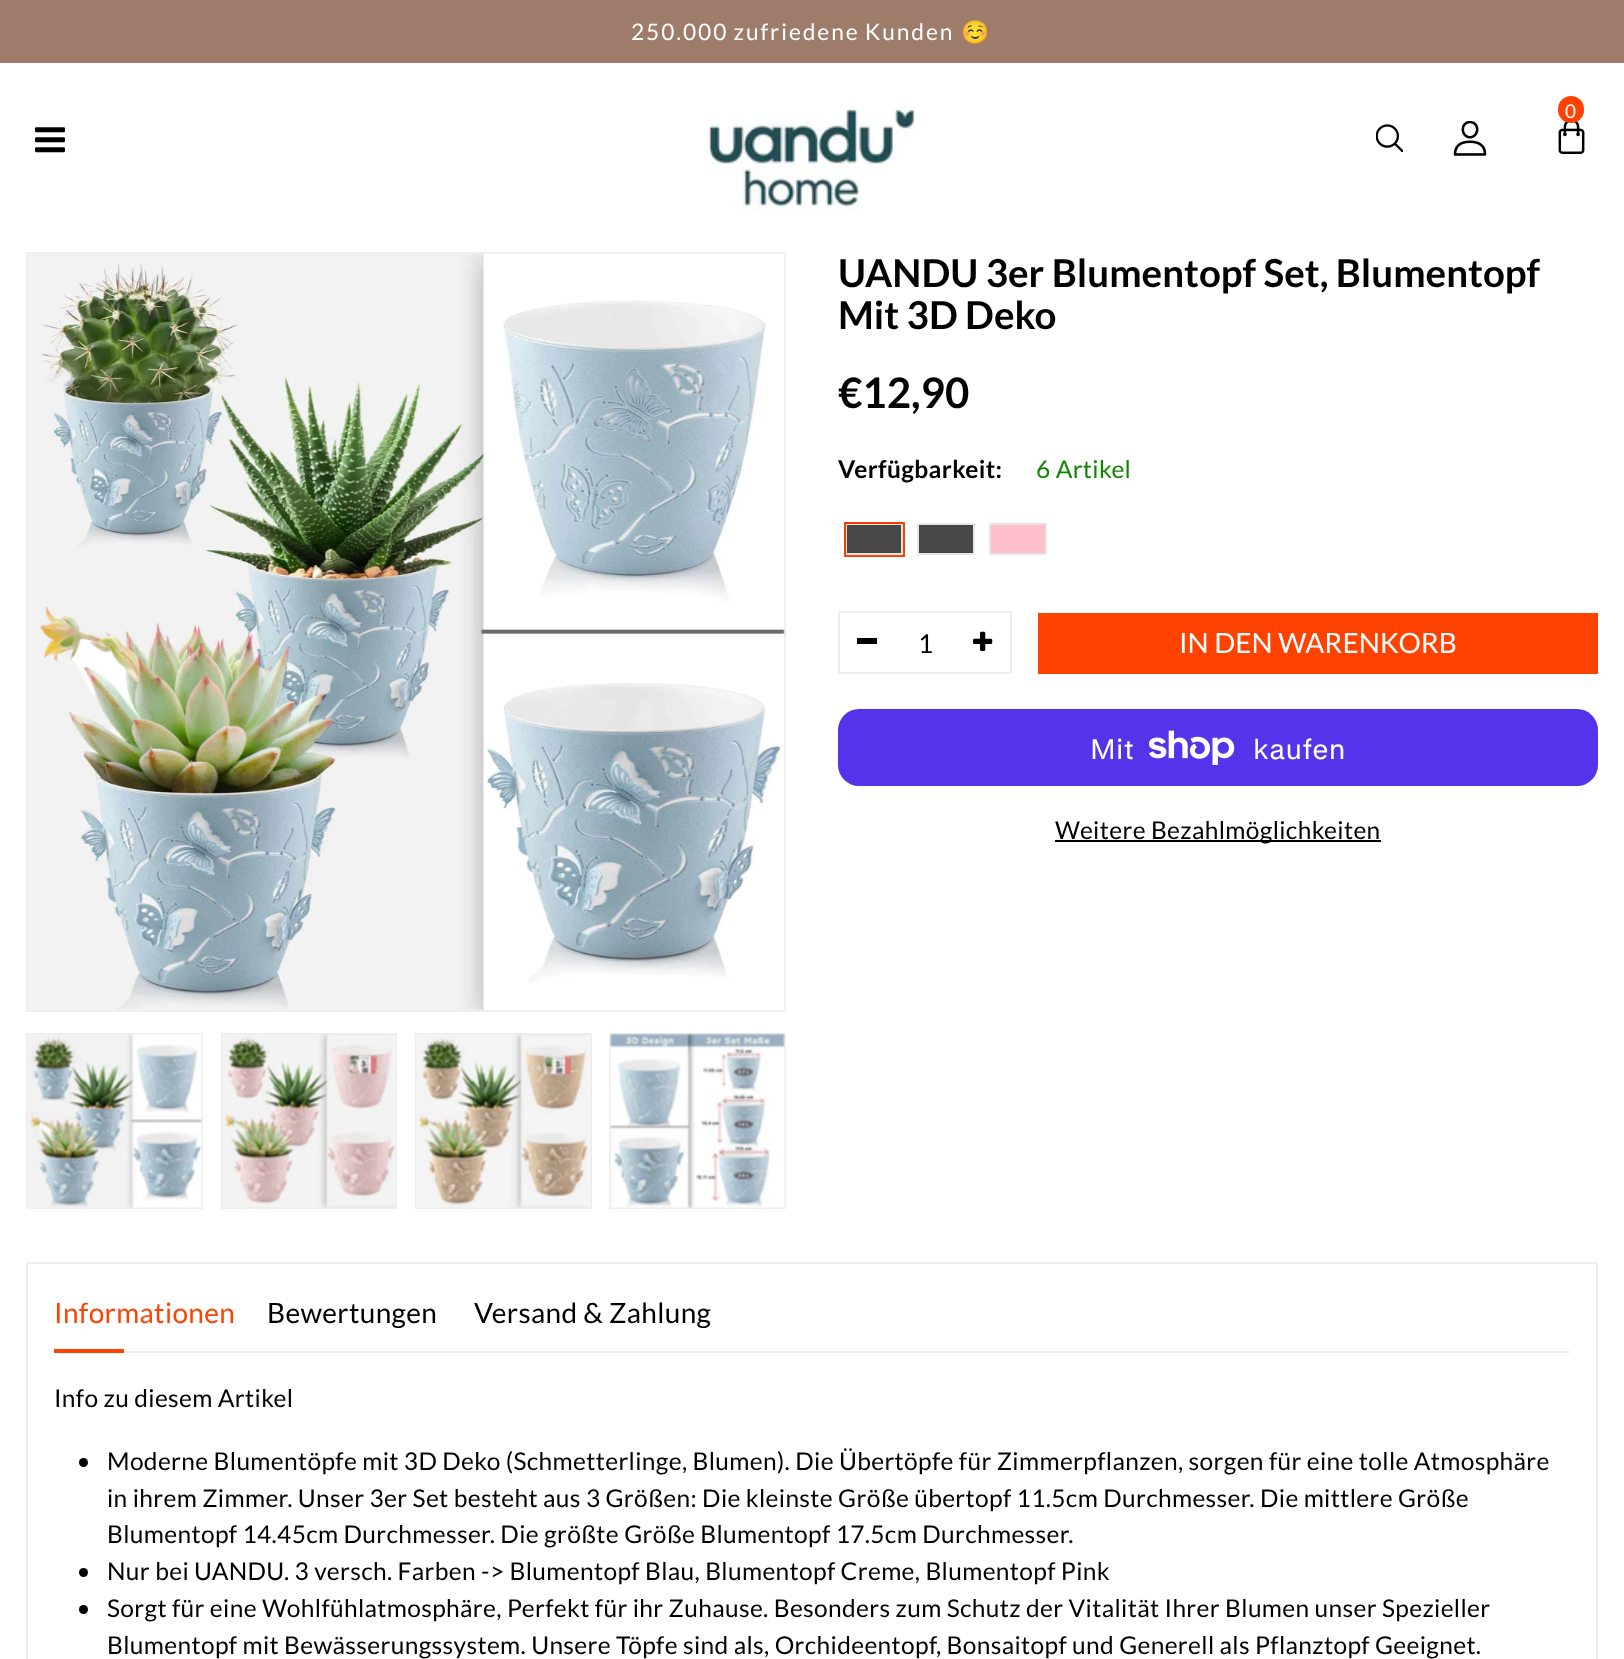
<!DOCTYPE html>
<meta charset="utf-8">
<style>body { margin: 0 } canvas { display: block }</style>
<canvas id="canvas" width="1624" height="1659"></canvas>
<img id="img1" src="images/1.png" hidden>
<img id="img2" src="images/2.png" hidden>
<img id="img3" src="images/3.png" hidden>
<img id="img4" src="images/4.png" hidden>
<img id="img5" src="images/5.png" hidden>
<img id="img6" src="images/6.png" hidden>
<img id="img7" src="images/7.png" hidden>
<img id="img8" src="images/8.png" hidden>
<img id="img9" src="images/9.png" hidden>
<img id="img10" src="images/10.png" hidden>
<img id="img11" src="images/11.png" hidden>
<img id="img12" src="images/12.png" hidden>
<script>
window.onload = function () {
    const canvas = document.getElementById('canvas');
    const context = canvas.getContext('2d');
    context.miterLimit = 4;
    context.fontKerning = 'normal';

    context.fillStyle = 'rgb(255, 255, 255)';
    context.fillRect(0, 0, 1624, 1659);
    context.fillStyle = 'rgb(157, 124, 106)';
    context.fillRect(0, 0, 1624, 63);
    context.drawImage(document.getElementById('img1'), 35, 127, 30, 26);
    context.drawImage(document.getElementById('img2'), 707, 105, 209, 108);
    context.drawImage(document.getElementById('img3'), 1558, 121, 27, 33);
    context.fillStyle = 'rgb(255, 66, 0)';
    context.beginPath();
    context.roundRect(1558, 96, 26, 27, 13);
    context.fill();
    context.drawImage(document.getElementById('img4'), 1376, 124, 27, 28);
    context.drawImage(document.getElementById('img5'), 1453, 121, 34, 35);
    context.strokeStyle = 'rgb(238, 238, 238)';
    context.lineWidth = 2;
    context.strokeRect(27, 253, 758, 758);
    context.drawImage(document.getElementById('img6'), 28, 253, 757, 757);
    context.strokeRect(27, 1034, 175, 174);
    context.drawImage(document.getElementById('img7'), 28, 1034, 174, 174);
    context.strokeRect(222, 1034, 174, 174);
    context.drawImage(document.getElementById('img8'), 222, 1034, 174, 174);
    context.strokeRect(416, 1034, 175, 174);
    context.drawImage(document.getElementById('img9'), 416, 1034, 174, 174);
    context.strokeRect(610, 1034, 175, 174);
    context.drawImage(document.getElementById('img10'), 610, 1033, 175, 175);
    context.strokeStyle = 'rgb(255, 66, 0)';
    context.strokeRect(845, 523, 59, 33);
    context.strokeStyle = 'rgba(0, 0, 0, 0.1)';
    context.strokeRect(846, 524, 56, 30);
    context.fillStyle = 'rgb(71, 71, 71)';
    context.fillRect(847, 525, 54, 28);
    context.strokeStyle = 'rgb(230, 230, 230)';
    context.strokeRect(918, 524, 56, 30);
    context.fillRect(919, 525, 54, 28);
    context.strokeRect(990, 524, 56, 30);
    context.fillStyle = 'rgb(255, 192, 203)';
    context.fillRect(991, 525, 54, 28);
    context.strokeStyle = 'rgb(238, 238, 238)';
    context.strokeRect(839, 612, 172, 61);
    context.fillStyle = 'rgb(0, 0, 0)';
    context.fillRect(857, 638, 20, 6);
    context.drawImage(document.getElementById('img11'), 973, 631, 20, 20);
    context.fillStyle = 'rgb(255, 66, 0)';
    context.fillRect(1038, 613, 560, 61);
    context.fillStyle = 'rgb(84, 51, 235)';
    context.beginPath();
    context.roundRect(838, 709, 760, 77, 21);
    context.fill();
    context.drawImage(document.getElementById('img12'), 1149, 730, 86, 35);
    context.fillStyle = 'rgb(0, 0, 0)';
    context.fillRect(1055, 840, 326, 2);
    context.strokeRect(27, 1263, 1570, 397);
    context.fillStyle = 'rgb(238, 238, 238)';
    context.fillRect(124, 1351, 1446, 2);
    context.fillStyle = 'rgb(255, 66, 0)';
    context.fillRect(54, 1349, 70, 4);
    context.fillStyle = 'rgb(0, 0, 0)';
    context.beginPath();
    context.arc(83.5, 1462.5, 4.5, 0, 2 * Math.PI);
    context.fill();
    context.beginPath();
    context.arc(83.5, 1572.5, 4.5, 0, 2 * Math.PI);
    context.fill();
    context.beginPath();
    context.arc(83.5, 1609.5, 4.5, 0, 2 * Math.PI);
    context.fill();
    context.letterSpacing = '1.9px';
    context.wordSpacing = '-1px';
    context.font = '22.75px Lato';
    context.fillStyle = 'rgb(255, 255, 255)';
    context.fillText('250.000 zufriedene Kunden', 631, 40);
    context.wordSpacing = '0px';
    context.font = '22.75px Noto Color Emoji';
    context.fillText('☺️', 961, 40);
    context.letterSpacing = '2px';
    context.font = '19px Lato';
    context.fillText('0', 1565, 118);
    context.letterSpacing = '0px';
    context.font = 'bold 38.5px Lato';
    context.fillStyle = 'rgb(0, 0, 0)';
    context.fillText('UANDU 3er Blumentopf Set, Blumentopf', 838, 287);
    context.fillText('Mit 3D Deko', 838, 329);
    context.font = 'bold 42px Lato';
    context.fillText('€12,90', 838, 408);
    context.letterSpacing = '0.35px';
    context.font = 'bold 24.5px Lato';
    context.fillText('Verfügbarkeit:', 838, 478);
    context.font = '24.5px Lato';
    context.fillStyle = 'rgb(17, 133, 2)';
    context.fillText('6 Artikel', 1036, 478);
    context.letterSpacing = '0px';
    context.font = '26px Lato';
    context.fillStyle = 'rgb(0, 0, 0)';
    context.fillText('1', 918, 653);
    context.font = '28px Lato';
    context.fillStyle = 'rgb(255, 255, 255)';
    context.fillText('IN DEN WARENKORB', 1179, 653);
    context.letterSpacing = '0.35px';
    context.font = '28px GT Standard';
    context.fillText('Mit', 1090, 759);
    context.fillText('kaufen', 1253, 759);
    context.font = '24.5px Lato';
    context.fillStyle = 'rgb(0, 0, 0)';
    context.fillText('Weitere Bezahlmöglichkeiten', 1055, 839);
    context.font = '28px Lato';
    context.fillStyle = 'rgb(255, 66, 0)';
    context.fillText('Informationen', 54, 1323);
    context.fillStyle = 'rgb(0, 0, 0)';
    context.fillText('Bewertungen', 267, 1323);
    context.fillText('Versand & Zahlung', 474, 1323);
    context.font = '24.5px Lato';
    context.fillText('Info zu diesem Artikel', 54, 1407);
    context.fillText('Moderne Blumentöpfe mit 3D Deko (Schmetterlinge, Blumen). Die Übertöpfe für Zimmerpflanzen, sorgen für eine tolle Atmosphäre', 107, 1470);
    context.fillText('in ihrem Zimmer. Unser 3er Set besteht aus 3 Größen: Die kleinste Größe übertopf 11.5cm Durchmesser. Die mittlere Größe', 107, 1507);
    context.fillText('Blumentopf 14.45cm Durchmesser. Die größte Größe Blumentopf 17.5cm Durchmesser.', 107, 1543);
    context.fillText('Nur bei UANDU. 3 versch. Farben -> Blumentopf Blau, Blumentopf Creme, Blumentopf Pink', 107, 1580);
    context.fillText('Sorgt für eine Wohlfühlatmosphäre, Perfekt für ihr Zuhause. Besonders zum Schutz der Vitalität Ihrer Blumen unser Spezieller', 107, 1617);
    context.fillText('Blumentopf mit Bewässerungssystem. Unsere Töpfe sind als, Orchideentopf, Bonsaitopf und Generell als Pflanztopf Geeignet.', 107, 1654);
};
</script>
